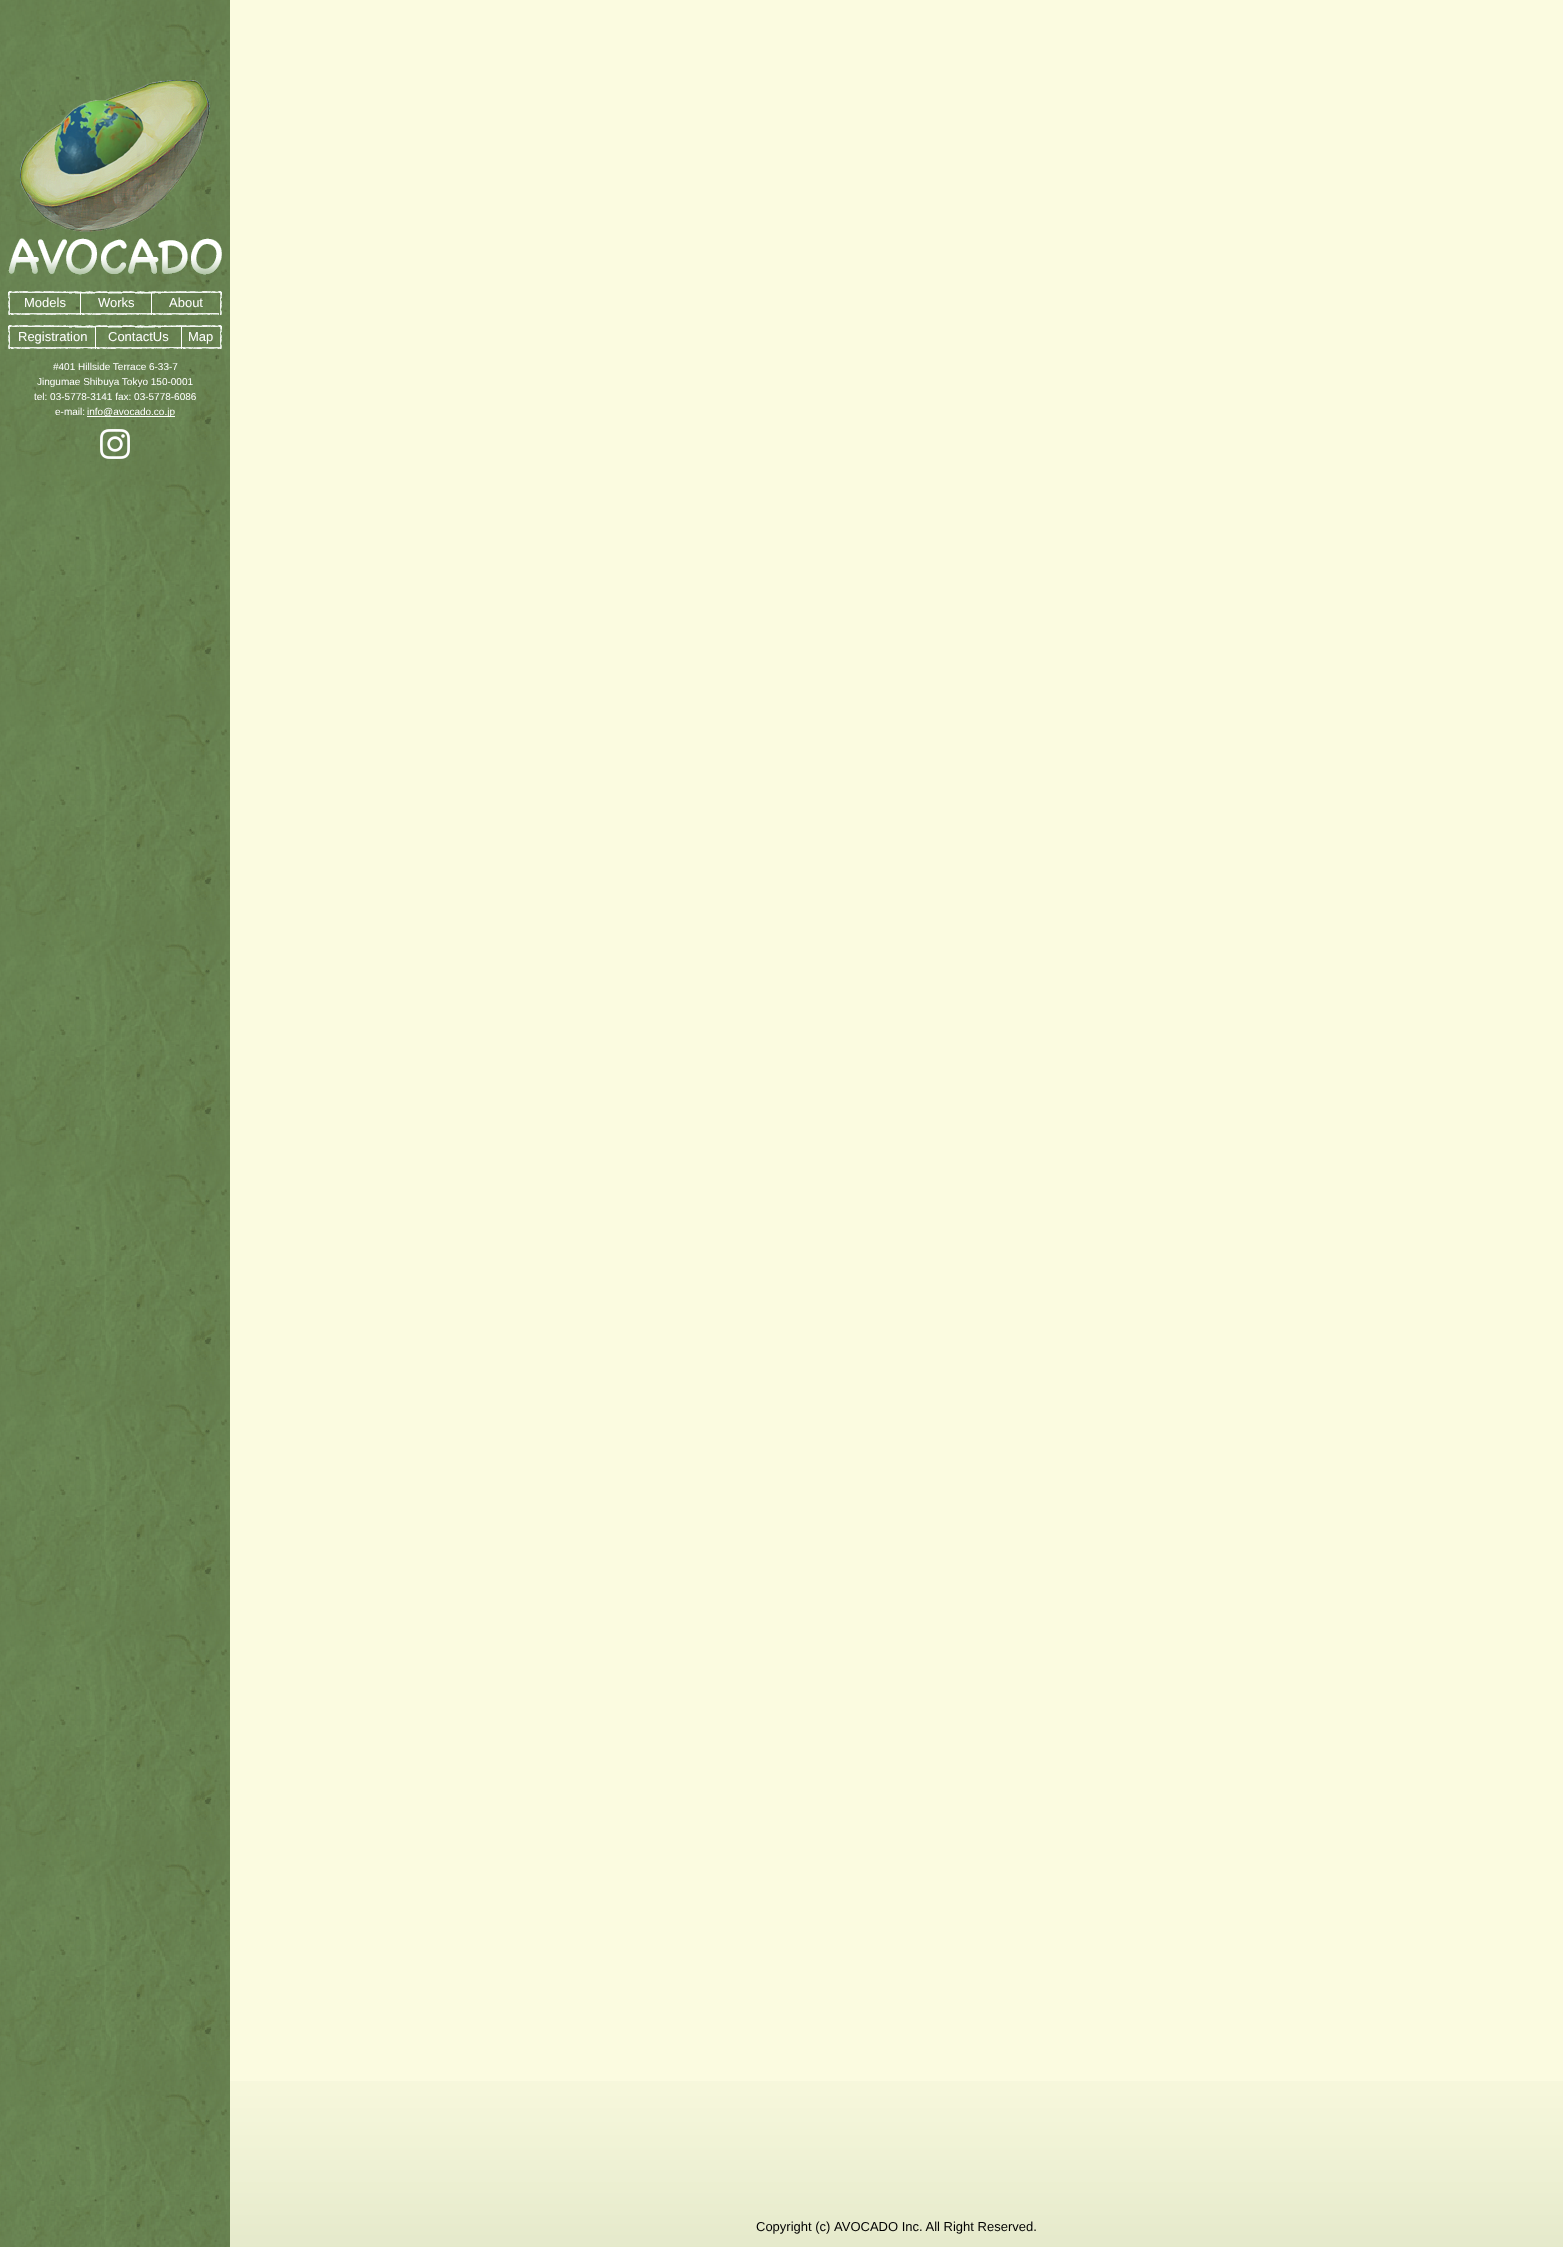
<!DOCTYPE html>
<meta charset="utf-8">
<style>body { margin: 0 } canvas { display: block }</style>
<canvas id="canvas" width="1563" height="2247"></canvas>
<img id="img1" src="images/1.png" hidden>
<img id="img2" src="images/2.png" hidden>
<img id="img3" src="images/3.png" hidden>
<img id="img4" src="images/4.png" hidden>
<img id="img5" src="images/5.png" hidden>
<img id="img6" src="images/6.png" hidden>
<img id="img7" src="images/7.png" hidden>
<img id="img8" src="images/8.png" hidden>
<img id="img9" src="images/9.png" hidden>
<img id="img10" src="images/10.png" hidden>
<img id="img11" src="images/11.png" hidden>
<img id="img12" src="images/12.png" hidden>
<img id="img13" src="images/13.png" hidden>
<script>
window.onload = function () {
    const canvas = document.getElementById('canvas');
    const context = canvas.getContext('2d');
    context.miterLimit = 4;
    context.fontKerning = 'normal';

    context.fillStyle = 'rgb(251, 251, 224)';
    context.fillRect(0, 0, 1563, 2247);
    context.drawImage(document.getElementById('img1'), 230, 2081, 1333, 166);
    context.drawImage(document.getElementById('img2'), 0, 0, 230, 2247);
    context.drawImage(document.getElementById('img3'), 20, 80, 190, 152);
    context.drawImage(document.getElementById('img4'), 8, 238, 214, 37);
    context.drawImage(document.getElementById('img5'), 8, 291, 214, 24);
    context.drawImage(document.getElementById('img6'), 10, 313, 70, 2);
    context.drawImage(document.getElementById('img7'), 81, 313, 70, 2);
    context.fillStyle = 'rgb(255, 255, 255)';
    context.fillRect(80, 293, 1, 22);
    context.drawImage(document.getElementById('img8'), 152, 313, 67, 2);
    context.fillRect(151, 293, 1, 22);
    context.drawImage(document.getElementById('img9'), 8, 325, 214, 24);
    context.drawImage(document.getElementById('img10'), 10, 347, 85, 2);
    context.drawImage(document.getElementById('img11'), 96, 347, 85, 2);
    context.fillRect(95, 327, 1, 22);
    context.drawImage(document.getElementById('img12'), 182, 347, 38, 2);
    context.fillRect(181, 327, 1, 22);
    context.fillRect(87, 416, 88, 1);
    context.drawImage(document.getElementById('img13'), 100, 429, 30, 30);
    context.font = '13px Liberation Sans';
    context.fillText('Models', 24, 307);
    context.fillText('Works', 98, 307);
    context.fillText('About', 169, 307);
    context.fillText('Registration', 18, 341);
    context.fillText('ContactUs', 108, 341);
    context.fillText('Map', 188, 341);
    context.font = '10px Liberation Sans';
    context.fillText('#401 Hillside Terrace 6-33-7', 53, 370);
    context.fillText('Jingumae Shibuya Tokyo 150-0001', 37, 385);
    context.fillText('tel: 03-5778-3141 fax: 03-5778-6086', 34, 400);
    context.fillText('e-mail:', 55, 415);
    context.fillText('info@avocado.co.jp', 87, 415);
    context.font = '13px Liberation Sans';
    context.fillStyle = 'rgb(0, 0, 0)';
    context.fillText('Copyright (c)', 756, 2231);
    context.fillText('AVOCADO Inc. All Right Reserved.', 834, 2231);
};
</script>
